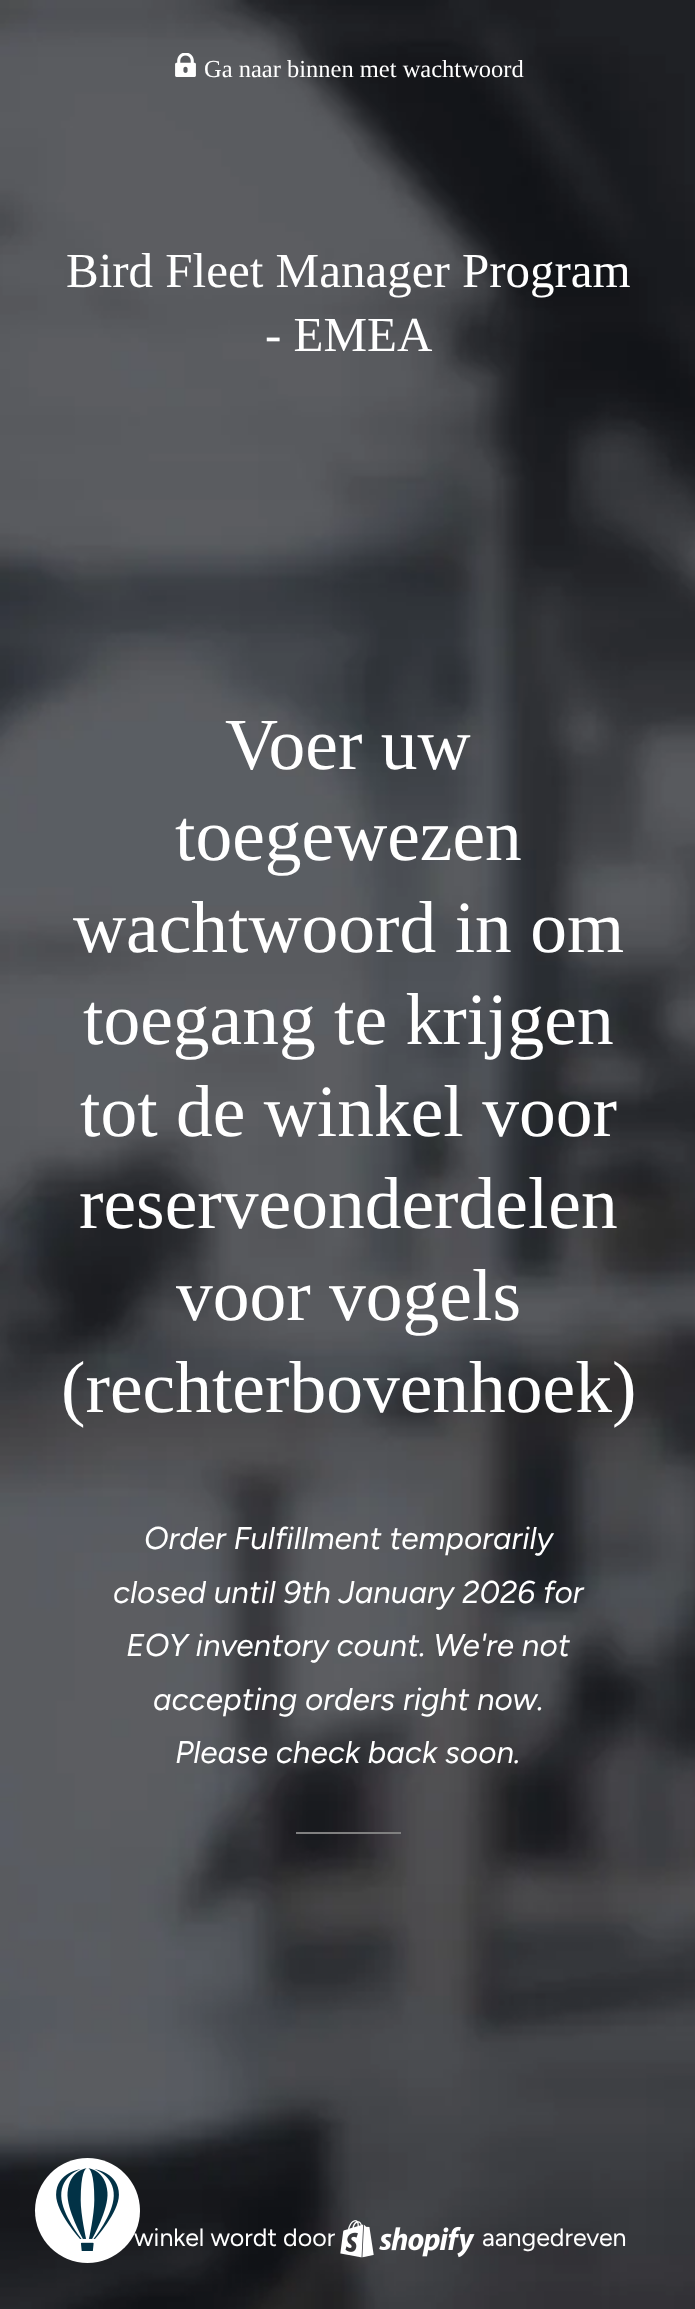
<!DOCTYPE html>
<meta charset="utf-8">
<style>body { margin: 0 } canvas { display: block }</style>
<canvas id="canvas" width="695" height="2309"></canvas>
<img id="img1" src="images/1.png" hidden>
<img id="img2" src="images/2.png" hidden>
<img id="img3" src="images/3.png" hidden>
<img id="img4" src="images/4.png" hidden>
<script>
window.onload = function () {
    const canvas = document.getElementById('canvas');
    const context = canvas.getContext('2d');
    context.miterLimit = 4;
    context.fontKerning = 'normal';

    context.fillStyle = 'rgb(255, 255, 255)';
    context.fillRect(0, 0, 695, 2309);
    context.drawImage(document.getElementById('img1'), 0, 0, 695, 2309);
    context.drawImage(document.getElementById('img2'), 175, 53, 21, 24);
    context.fillStyle = 'rgb(128, 128, 128)';
    context.fillRect(296, 1832, 105, 2);
    context.drawImage(document.getElementById('img3'), 340, 2220, 135, 38);
    context.fillStyle = 'rgb(255, 255, 255)';
    context.beginPath();
    context.arc(87.5, 2210.5, 52.5, 0, 2 * Math.PI);
    context.fill();
    context.drawImage(document.getElementById('img4'), 56, 2168, 63, 83);
    context.font = '24.5px Liberation Serif';
    context.fillText('Ga naar binnen met wachtwoord', 204, 77);
    context.font = '49px Liberation Serif';
    context.fillText('Bird Fleet Manager Program', 66, 287);
    context.fillText('- EMEA', 265, 351);
    context.font = '73.5px Liberation Serif';
    context.fillText('Voer uw', 225, 769);
    context.fillText('toegewezen', 175, 860);
    context.fillText('wachtwoord in om', 73, 952);
    context.fillText('toegang te krijgen', 83, 1044);
    context.fillText('tot de winkel voor', 80, 1136);
    context.fillText('reserveonderdelen', 79, 1228);
    context.fillText('voor vogels', 176, 1320);
    context.fillText('(rechterbovenhoek)', 61, 1412);
    context.font = 'italic 31.5px Figtree';
    context.fillText('Order Fulfillment temporarily', 144, 1549);
    context.fillText('closed until 9th January 2026 for', 113, 1603);
    context.fillText('EOY inventory count. We\'re not', 126, 1656);
    context.fillText('accepting orders right now.', 153, 1710);
    context.fillText('Please check back soon.', 175, 1763);
    context.font = '25px Figtree';
    context.fillText('winkel wordt door', 134, 2246);
    context.fillText('aangedreven', 482, 2246);
};
</script>
